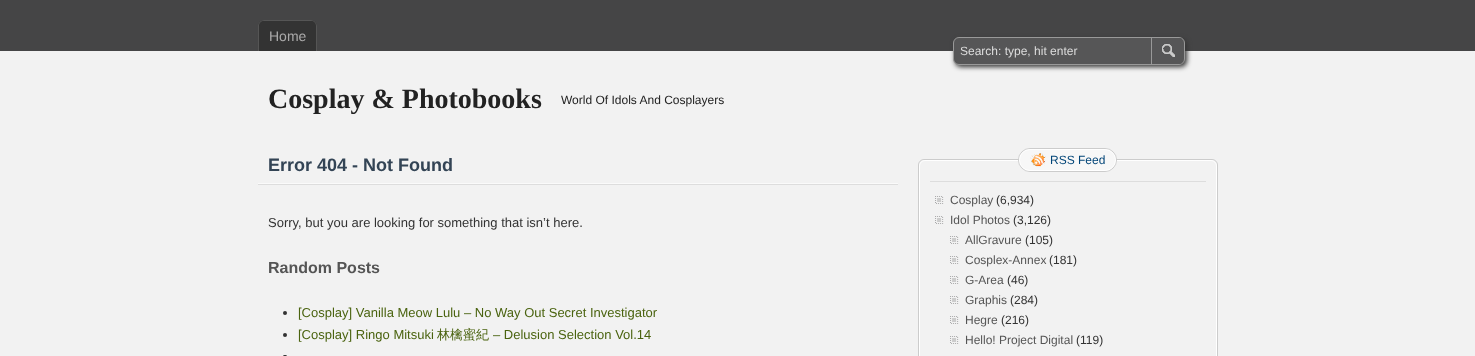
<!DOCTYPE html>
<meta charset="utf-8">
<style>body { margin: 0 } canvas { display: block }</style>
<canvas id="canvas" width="1475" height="356"></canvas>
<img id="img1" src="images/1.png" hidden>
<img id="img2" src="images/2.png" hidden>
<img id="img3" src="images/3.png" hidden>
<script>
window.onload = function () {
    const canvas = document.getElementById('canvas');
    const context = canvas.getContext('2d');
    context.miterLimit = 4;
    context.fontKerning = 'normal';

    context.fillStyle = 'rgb(242, 242, 242)';
    context.fillRect(0, 0, 1475, 356);
    context.fillStyle = 'rgb(69, 69, 70)';
    context.fillRect(0, 0, 1475, 51);
    context.fillStyle = 'rgb(51, 51, 51)';
    context.beginPath();
    context.roundRect(258, 20, 59, 31, [6, 6, 0, 0]);
    context.fill();
    context.fillStyle = 'rgb(85, 85, 85)';
    context.beginPath();
    context.moveTo(264, 20);
    context.lineTo(311, 20);
    context.bezierCurveTo(314, 20, 317, 23, 317, 26);
    context.lineTo(317, 51);
    context.lineTo(258, 51);
    context.lineTo(258, 26);
    context.bezierCurveTo(258, 23, 261, 20, 264, 20);
    context.closePath();
    context.moveTo(264, 21);
    context.lineTo(311, 21);
    context.bezierCurveTo(314, 21, 316, 23, 316, 26);
    context.lineTo(316, 51);
    context.lineTo(259, 51);
    context.lineTo(259, 26);
    context.bezierCurveTo(259, 23, 261, 21, 264, 21);
    context.closePath();
    context.fill('evenodd');
    context.fillStyle = 'rgb(51, 51, 51)';
    context.filter = 'blur(2.5px)';
    context.beginPath();
    context.roundRect(955, 39, 232, 28, 6);
    context.fill();
    context.filter = 'none';
    context.fillStyle = 'rgb(86, 86, 87)';
    context.beginPath();
    context.roundRect(953.5, 37.5, 231, 27, 5.5);
    context.fill();
    context.strokeStyle = 'rgb(153, 153, 153)';
    context.stroke();
    context.save();
    context.beginPath();
    context.roundRect(954, 38, 230, 26, 5);
    context.clip();
    context.fillRect(1152, 38, 30, 26);
    context.restore();
    context.drawImage(document.getElementById('img1'), 1162, 44, 13, 13);
    context.fillStyle = 'rgb(153, 153, 153)';
    context.fillRect(1151, 38, 1, 26);
    context.fillStyle = 'rgb(250, 250, 250)';
    context.fillRect(258, 183, 640, 1);
    context.fillStyle = 'rgb(221, 221, 221)';
    context.fillRect(258, 184, 640, 1);
    context.fillStyle = 'rgb(51, 51, 51)';
    context.beginPath();
    context.arc(285, 313, 2, 0, 2 * Math.PI);
    context.fill();
    context.beginPath();
    context.arc(285, 335, 2, 0, 2 * Math.PI);
    context.fill();
    context.beginPath();
    context.roundRect(283, 355, 4, 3, 2);
    context.fill();
    context.beginPath();
    context.roundRect(918.5, 159.5, 299, 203, 5.5);
    context.strokeStyle = 'rgb(204, 204, 204)';
    context.stroke();
    context.beginPath();
    context.roundRect(919.5, 160.5, 297, 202, 5.5);
    context.strokeStyle = 'rgb(255, 255, 255)';
    context.stroke();
    context.beginPath();
    context.roundRect(1018.5, 148.5, 98, 23, 11.5);
    context.strokeStyle = 'rgb(204, 204, 204)';
    context.stroke();
    context.fillStyle = 'rgb(247, 247, 247)';
    context.beginPath();
    context.roundRect(1019.5, 149.5, 96, 21, 10.5);
    context.fill();
    context.strokeStyle = 'rgb(255, 255, 255)';
    context.stroke();
    context.drawImage(document.getElementById('img2'), 1030, 153, 16, 14);
    context.fillStyle = 'rgb(221, 221, 221)';
    context.fillRect(930, 181, 276, 1);
    context.drawImage(document.getElementById('img3'), 935, 196, 9, 8);
    context.drawImage(document.getElementById('img3'), 935, 216, 9, 8);
    context.drawImage(document.getElementById('img3'), 950, 236, 9, 8);
    context.drawImage(document.getElementById('img3'), 950, 256, 9, 8);
    context.drawImage(document.getElementById('img3'), 950, 276, 9, 8);
    context.drawImage(document.getElementById('img3'), 950, 296, 9, 8);
    context.drawImage(document.getElementById('img3'), 950, 316, 9, 8);
    context.drawImage(document.getElementById('img3'), 950, 336, 9, 8);
    context.font = '14px Liberation Sans';
    context.fillStyle = 'rgb(171, 170, 170)';
    context.fillText('Home', 269, 41);
    context.font = '12px Liberation Sans';
    context.fillStyle = 'rgb(221, 221, 221)';
    context.fillText('Search: type, hit enter', 960, 55);
    context.font = 'bold 28px Liberation Serif';
    context.fillStyle = 'rgb(34, 34, 34)';
    context.fillText('Cosplay & Photobooks', 268, 108);
    context.font = '12px Liberation Sans';
    context.fillText('World Of Idols And Cosplayers', 561, 104);
    context.font = 'bold 18px Liberation Sans';
    context.fillStyle = 'rgb(51, 68, 85)';
    context.fillText('Error 404 - Not Found', 268, 171);
    context.font = '13px Liberation Sans';
    context.fillStyle = 'rgb(51, 51, 51)';
    context.fillText('Sorry, but you are looking for something that isn’t here.', 268, 227);
    context.font = 'bold 16px Liberation Sans';
    context.fillStyle = 'rgb(85, 85, 85)';
    context.fillText('Random Posts', 268, 273);
    context.font = '13px Liberation Sans';
    context.fillStyle = 'rgb(74, 99, 15)';
    context.fillText('[Cosplay] Vanilla Meow Lulu – No Way Out Secret Investigator', 298, 317);
    context.fillText('[Cosplay] Ringo Mitsuki', 298, 339);
    context.font = '500 13px WenQuanYi Zen Hei';
    context.fillText('林檎蜜紀', 437, 339);
    context.font = '13px Liberation Sans';
    context.fillText('– Delusion Selection Vol.14', 493, 339);
    context.font = '12px Liberation Sans';
    context.fillStyle = 'rgb(0, 68, 119)';
    context.fillText('RSS Feed', 1050, 164);
    context.fillStyle = 'rgb(85, 85, 85)';
    context.fillText('Cosplay', 950, 204);
    context.fillStyle = 'rgb(51, 51, 51)';
    context.fillText('(6,934)', 996, 204);
    context.fillStyle = 'rgb(85, 85, 85)';
    context.fillText('Idol Photos', 950, 224);
    context.fillStyle = 'rgb(51, 51, 51)';
    context.fillText('(3,126)', 1013, 224);
    context.fillStyle = 'rgb(85, 85, 85)';
    context.fillText('AllGravure', 965, 244);
    context.fillStyle = 'rgb(51, 51, 51)';
    context.fillText('(105)', 1025, 244);
    context.fillStyle = 'rgb(85, 85, 85)';
    context.fillText('Cosplex-Annex', 965, 264);
    context.fillStyle = 'rgb(51, 51, 51)';
    context.fillText('(181)', 1049, 264);
    context.fillStyle = 'rgb(85, 85, 85)';
    context.fillText('G-Area', 965, 284);
    context.fillStyle = 'rgb(51, 51, 51)';
    context.fillText('(46)', 1007, 284);
    context.fillStyle = 'rgb(85, 85, 85)';
    context.fillText('Graphis', 965, 304);
    context.fillStyle = 'rgb(51, 51, 51)';
    context.fillText('(284)', 1010, 304);
    context.fillStyle = 'rgb(85, 85, 85)';
    context.fillText('Hegre', 965, 324);
    context.fillStyle = 'rgb(51, 51, 51)';
    context.fillText('(216)', 1001, 324);
    context.fillStyle = 'rgb(85, 85, 85)';
    context.fillText('Hello! Project Digital', 965, 344);
    context.fillStyle = 'rgb(51, 51, 51)';
    context.fillText('(119)', 1076, 344);
};
</script>
